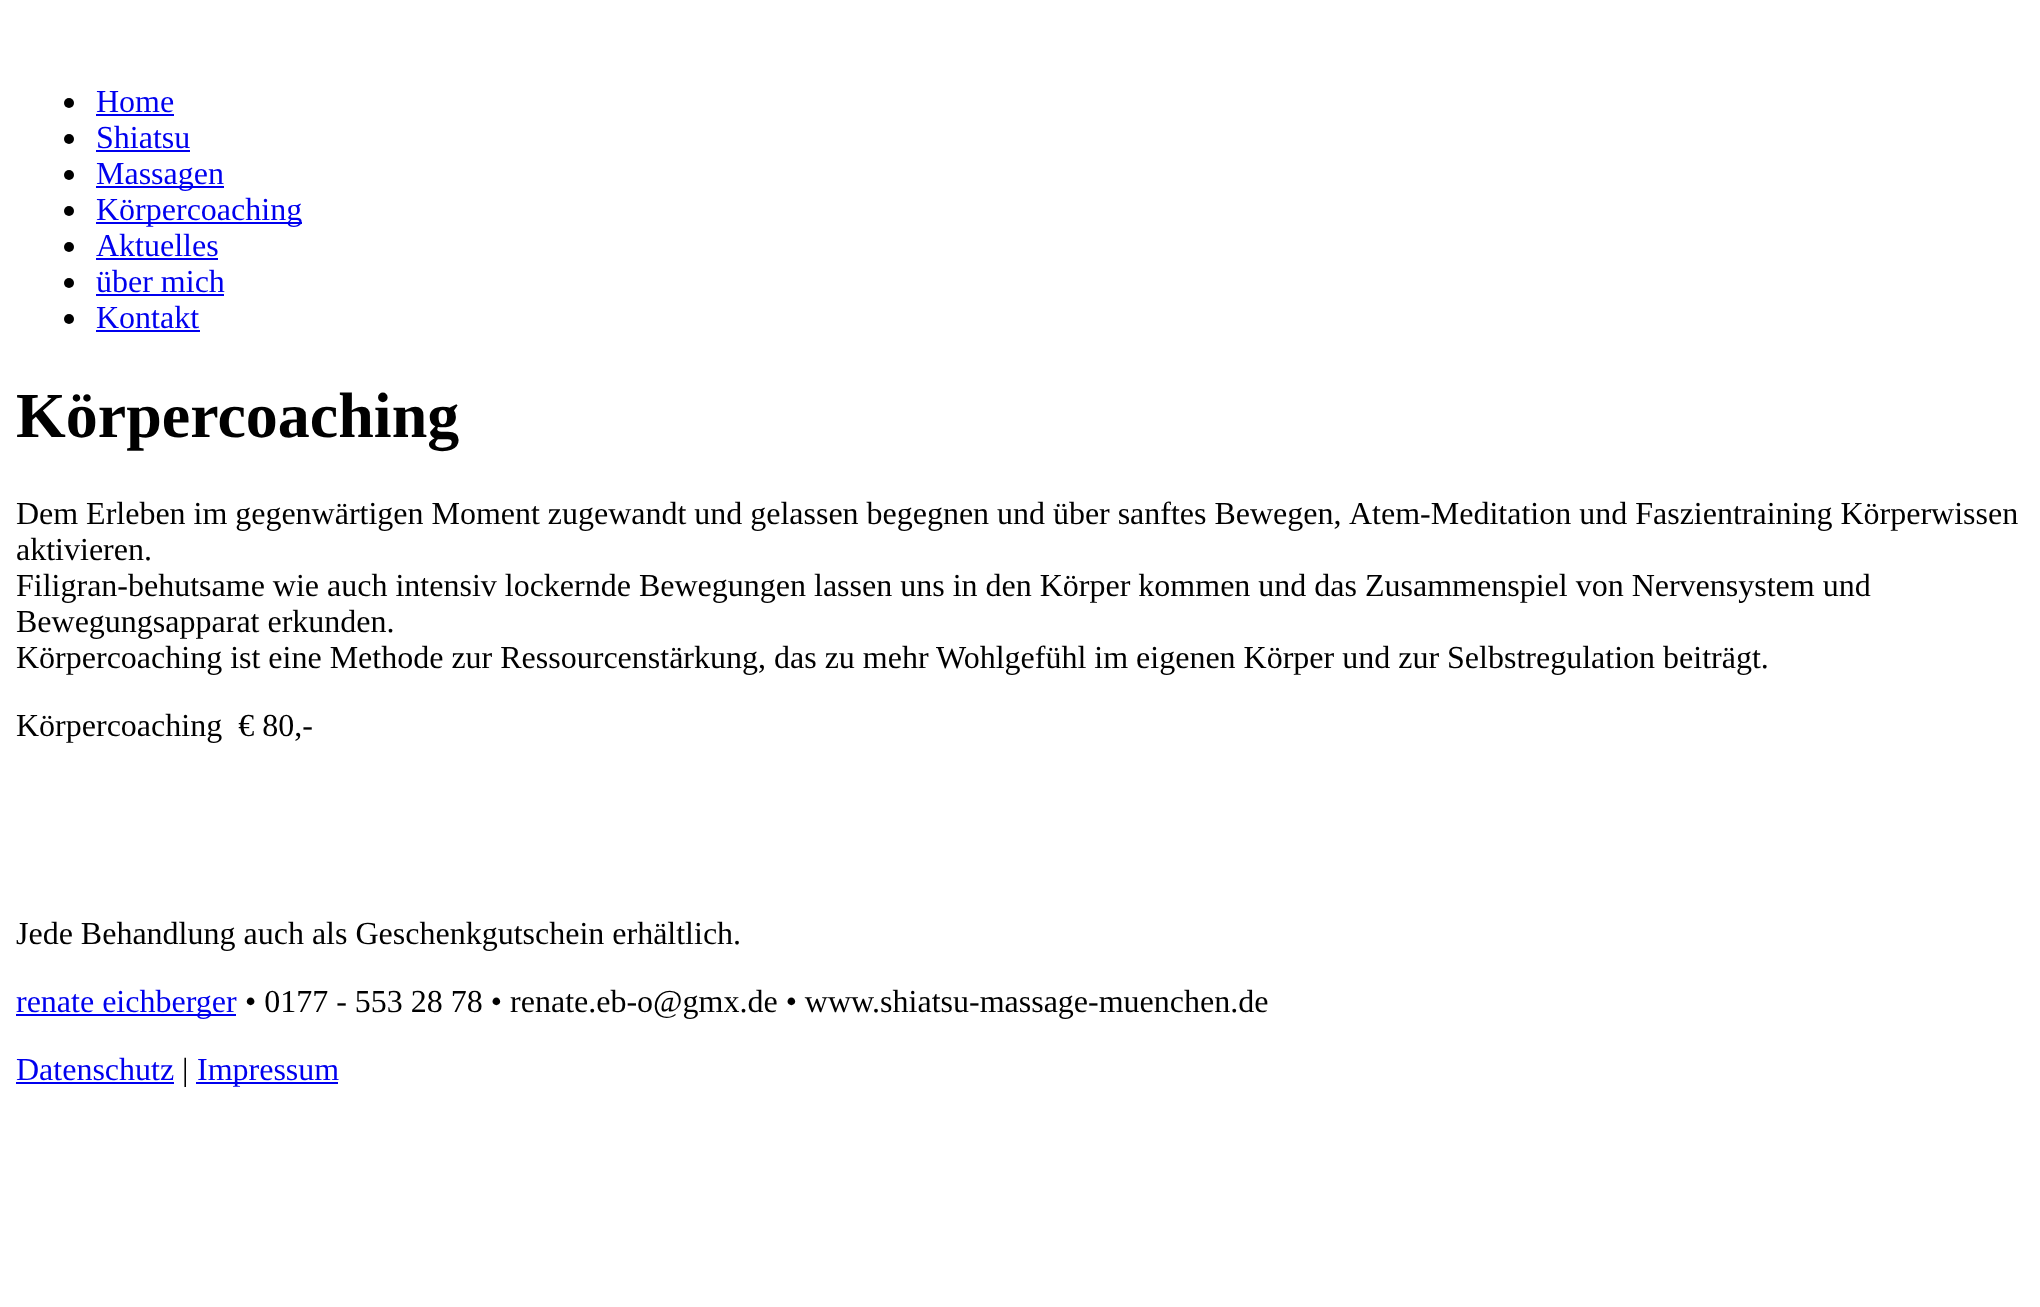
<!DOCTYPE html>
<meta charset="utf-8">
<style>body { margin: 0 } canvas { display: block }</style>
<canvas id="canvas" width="2040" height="1307"></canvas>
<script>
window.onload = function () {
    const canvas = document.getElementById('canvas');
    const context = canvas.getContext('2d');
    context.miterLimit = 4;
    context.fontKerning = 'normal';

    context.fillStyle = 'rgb(255, 255, 255)';
    context.fillRect(0, 0, 2040, 1307);
    context.fillStyle = 'rgb(0, 0, 0)';
    context.beginPath();
    context.arc(69, 103, 5, 0, 2 * Math.PI);
    context.fill();
    context.fillStyle = 'rgb(0, 0, 238)';
    context.fillRect(96, 114, 78, 2);
    context.fillStyle = 'rgb(0, 0, 0)';
    context.beginPath();
    context.arc(69, 139, 5, 0, 2 * Math.PI);
    context.fill();
    context.fillStyle = 'rgb(0, 0, 238)';
    context.fillRect(96, 150, 94, 2);
    context.fillStyle = 'rgb(0, 0, 0)';
    context.beginPath();
    context.arc(69, 175, 5, 0, 2 * Math.PI);
    context.fill();
    context.fillStyle = 'rgb(0, 0, 238)';
    context.fillRect(96, 186, 128, 2);
    context.fillStyle = 'rgb(0, 0, 0)';
    context.beginPath();
    context.arc(69, 211, 5, 0, 2 * Math.PI);
    context.fill();
    context.fillStyle = 'rgb(0, 0, 238)';
    context.fillRect(96, 222, 206, 2);
    context.fillStyle = 'rgb(0, 0, 0)';
    context.beginPath();
    context.arc(69, 247, 5, 0, 2 * Math.PI);
    context.fill();
    context.fillStyle = 'rgb(0, 0, 238)';
    context.fillRect(96, 258, 122, 2);
    context.fillStyle = 'rgb(0, 0, 0)';
    context.beginPath();
    context.arc(69, 283, 5, 0, 2 * Math.PI);
    context.fill();
    context.fillStyle = 'rgb(0, 0, 238)';
    context.fillRect(96, 294, 128, 2);
    context.fillStyle = 'rgb(0, 0, 0)';
    context.beginPath();
    context.arc(69, 319, 5, 0, 2 * Math.PI);
    context.fill();
    context.fillStyle = 'rgb(0, 0, 238)';
    context.fillRect(96, 330, 104, 2);
    context.fillRect(16, 1014, 220, 2);
    context.fillRect(16, 1082, 158, 2);
    context.fillRect(196, 1082, 142, 2);
    context.font = '32px Liberation Serif';
    context.fillText('Home', 96, 112);
    context.fillText('Shiatsu', 96, 148);
    context.fillText('Massagen', 96, 184);
    context.fillText('Körpercoaching', 96, 220);
    context.fillText('Aktuelles', 96, 256);
    context.fillText('über mich', 96, 292);
    context.fillText('Kontakt', 96, 328);
    context.font = 'bold 64px Liberation Serif';
    context.fillStyle = 'rgb(0, 0, 0)';
    context.fillText('Körpercoaching', 16, 437);
    context.wordSpacing = '-0.1px';
    context.font = '32px Liberation Serif';
    context.fillText('Dem Erleben im gegenwärtigen Moment zugewandt und gelassen begegnen und über sanftes Bewegen,', 16, 524);
    context.wordSpacing = '0px';
    context.fillText('Atem-Meditation und Faszientraining Körperwissen', 1349, 524);
    context.fillText('aktivieren.', 16, 560);
    context.fillText('Filigran-behutsame wie auch intensiv lockernde Bewegungen lassen uns in den Körper kommen und das Zusammenspiel von Nervensystem und', 16, 596);
    context.fillText('Bewegungsapparat erkunden.', 16, 632);
    context.fillText('Körpercoaching ist eine Methode zur Ressourcenstärkung, das zu mehr Wohlgefühl im eigenen Körper und zur Selbstregulation beiträgt.', 16, 668);
    context.fillText('Körpercoaching  € 80,-', 16, 736);
    context.fillText('Jede Behandlung auch als Geschenkgutschein erhältlich.', 16, 944);
    context.fillStyle = 'rgb(0, 0, 238)';
    context.fillText('renate eichberger', 16, 1012);
    context.fillStyle = 'rgb(0, 0, 0)';
    context.fillText('• 0177 - 553 28 78 • renate.eb-o@gmx.de • www.shiatsu-massage-muenchen.de', 245, 1012);
    context.fillStyle = 'rgb(0, 0, 238)';
    context.fillText('Datenschutz', 16, 1080);
    context.fillStyle = 'rgb(0, 0, 0)';
    context.fillText('|', 182, 1080);
    context.fillStyle = 'rgb(0, 0, 238)';
    context.fillText('Impressum', 197, 1080);
};
</script>
